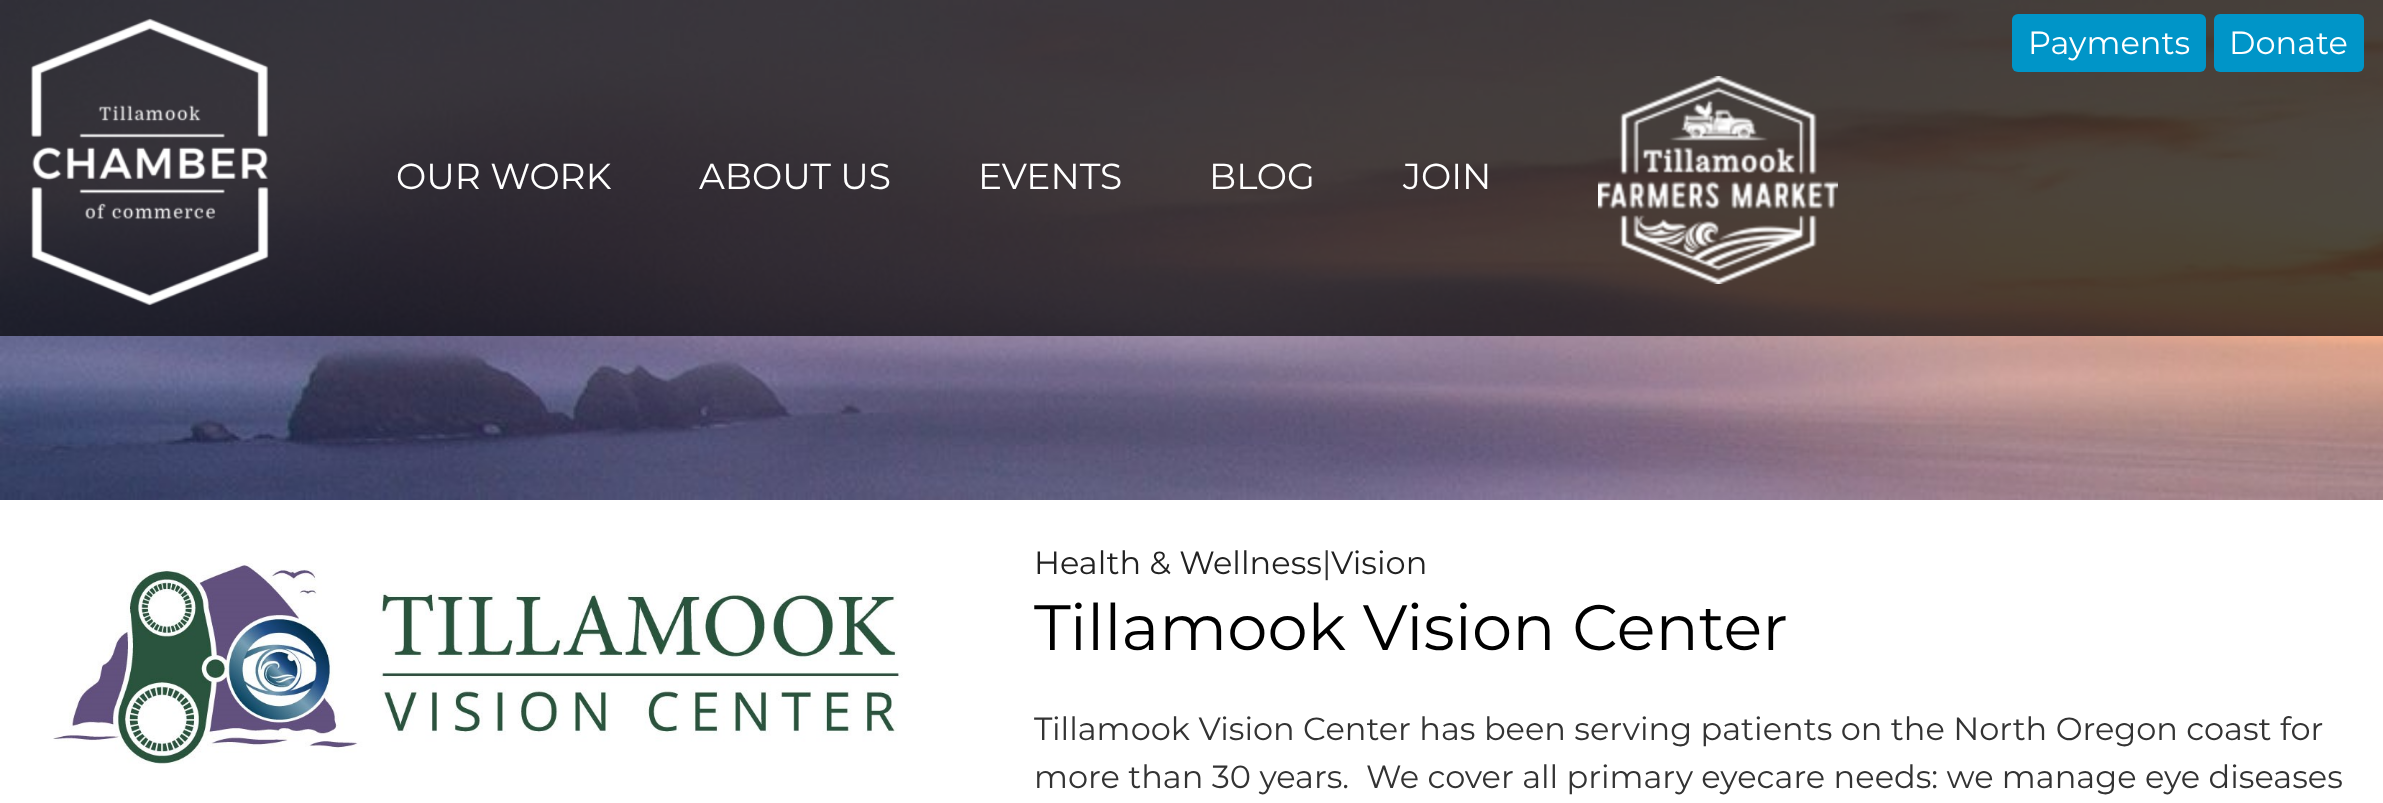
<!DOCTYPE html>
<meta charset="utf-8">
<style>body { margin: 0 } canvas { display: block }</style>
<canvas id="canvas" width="2383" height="803"></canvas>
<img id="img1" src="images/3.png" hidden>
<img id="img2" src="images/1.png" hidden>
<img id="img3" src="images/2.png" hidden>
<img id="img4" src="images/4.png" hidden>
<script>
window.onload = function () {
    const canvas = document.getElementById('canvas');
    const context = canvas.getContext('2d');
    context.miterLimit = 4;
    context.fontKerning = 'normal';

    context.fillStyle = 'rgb(255, 255, 255)';
    context.fillRect(0, 0, 2383, 803);
    context.drawImage(document.getElementById('img1'), 0, 0, 2383, 500);
    context.fillStyle = 'rgba(0, 0, 0, 0.7)';
    context.fillRect(0, 0, 2383, 336);
    context.drawImage(document.getElementById('img2'), 31, 18, 238, 288);
    context.fillStyle = 'rgb(0, 149, 200)';
    context.beginPath();
    context.roundRect(2012, 14, 194, 58, 6);
    context.fill();
    context.beginPath();
    context.roundRect(2214, 14, 150, 58, 6);
    context.fill();
    context.drawImage(document.getElementById('img3'), 1598, 76, 240, 208);
    context.drawImage(document.getElementById('img4'), 53, 561, 850, 203);
    context.font = '32px Montserrat';
    context.fillStyle = 'rgb(255, 255, 255)';
    context.fillText('Payments', 2028, 54);
    context.fillText('Donate', 2229, 54);
    context.font = '36px Montserrat';
    context.fillText('OUR WORK', 396, 189);
    context.fillText('ABOUT US', 699, 189);
    context.fillText('EVENTS', 978, 189);
    context.fillText('BLOG', 1209, 189);
    context.fillText('JOIN', 1403, 189);
    context.font = '32px Montserrat';
    context.fillStyle = 'rgb(34, 34, 34)';
    context.fillText('Health & Wellness', 1034, 574);
    context.fillStyle = 'rgb(51, 51, 51)';
    context.fillText('|', 1322, 574);
    context.fillStyle = 'rgb(34, 34, 34)';
    context.fillText('Vision', 1331, 574);
    context.font = '64px Montserrat';
    context.fillStyle = 'rgb(0, 0, 0)';
    context.fillText('Tillamook Vision Center', 1034, 650);
    context.font = '32px Montserrat';
    context.fillStyle = 'rgb(51, 51, 51)';
    context.fillText('Tillamook Vision Center has been serving patients on the North Oregon coast for', 1034, 740);
    context.fillText('more than 30 years.  We cover all primary eyecare needs: we manage eye diseases', 1034, 788);
};
</script>
